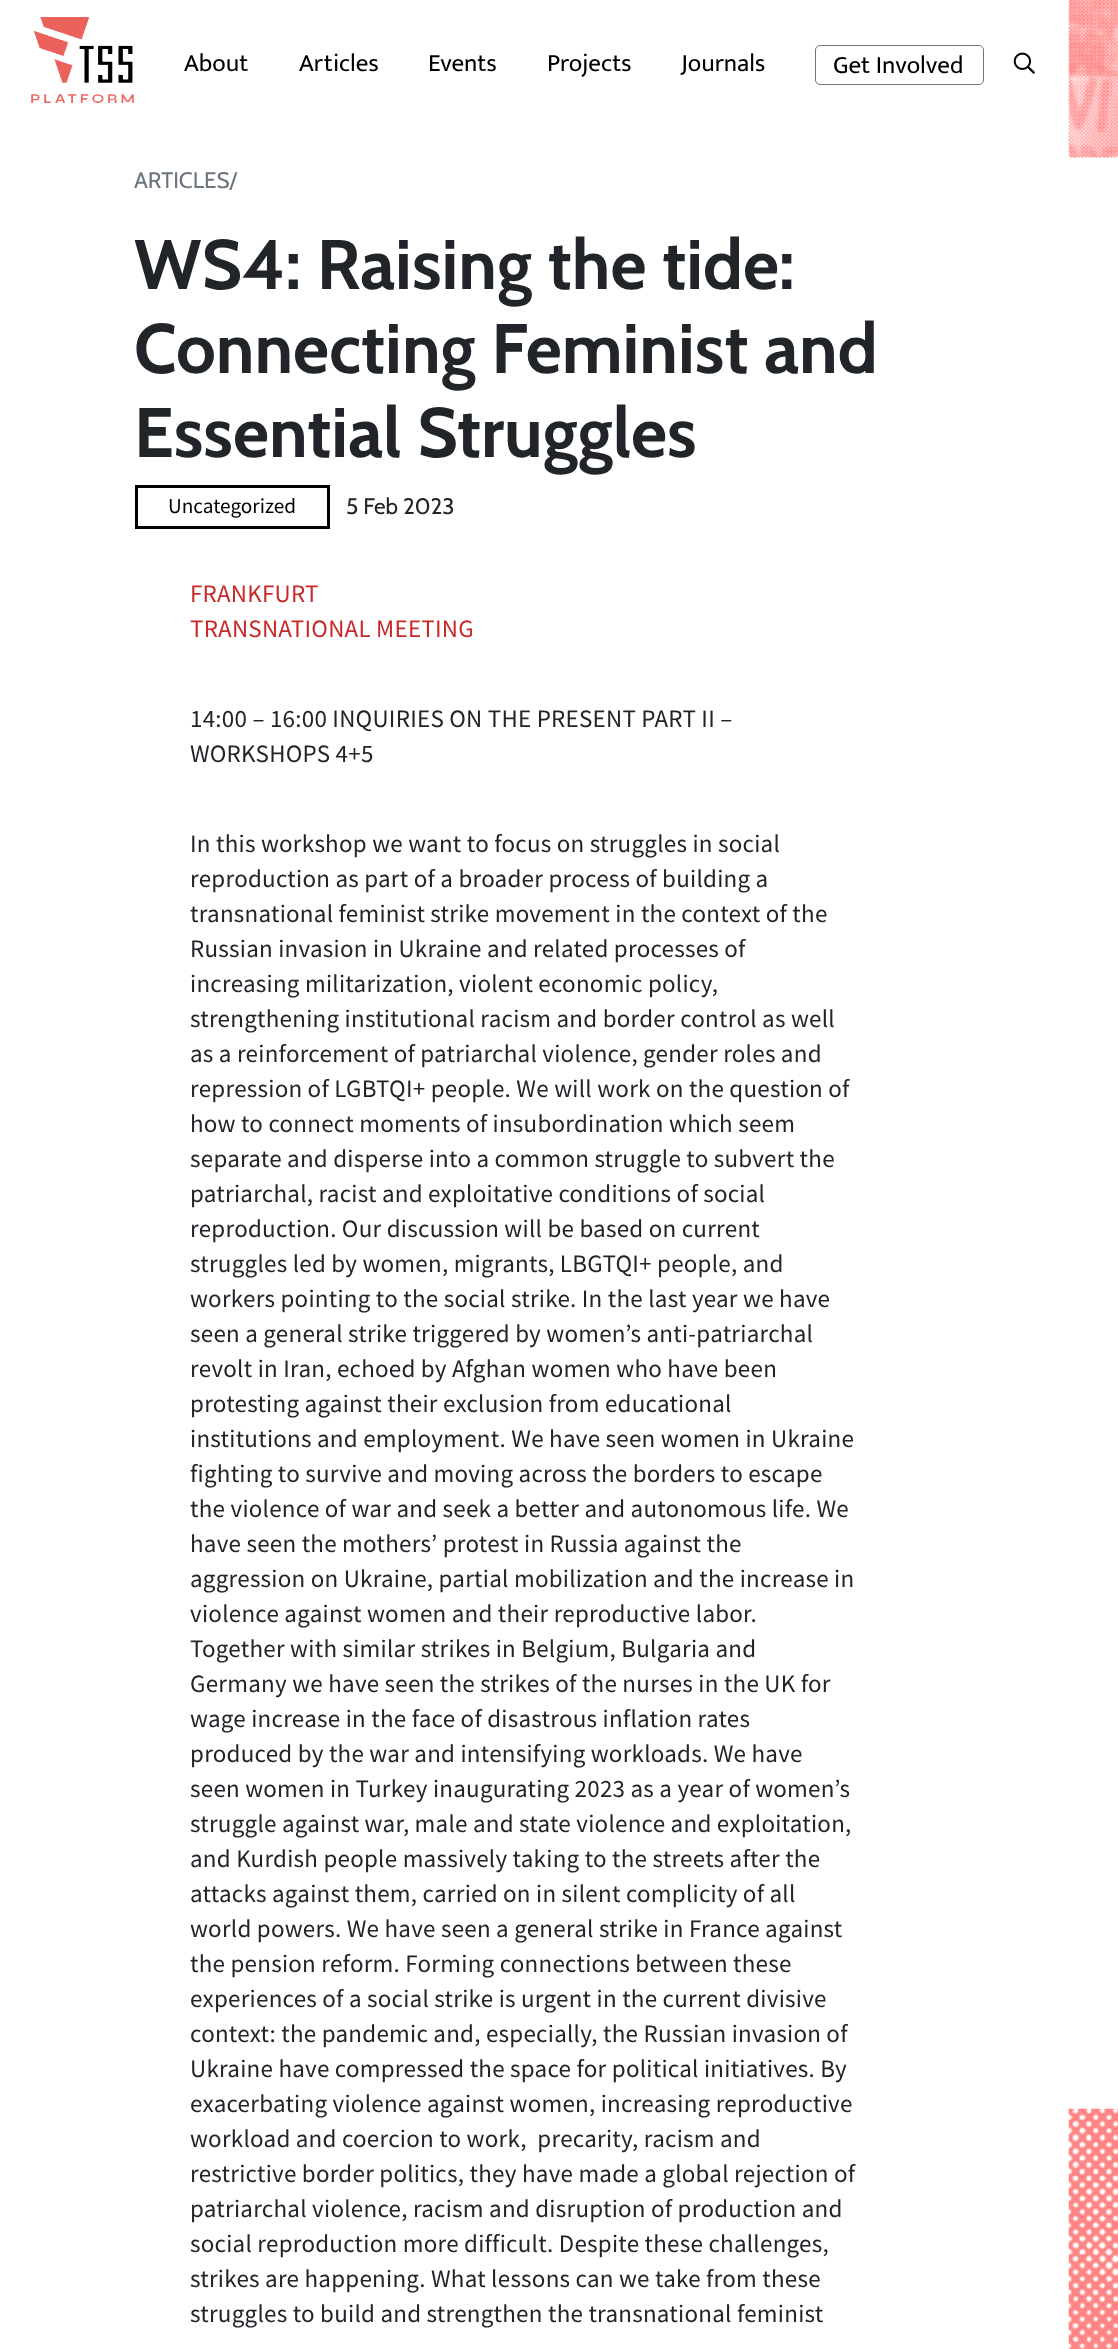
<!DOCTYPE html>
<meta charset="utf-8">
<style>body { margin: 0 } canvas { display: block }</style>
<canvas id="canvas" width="1118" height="2349"></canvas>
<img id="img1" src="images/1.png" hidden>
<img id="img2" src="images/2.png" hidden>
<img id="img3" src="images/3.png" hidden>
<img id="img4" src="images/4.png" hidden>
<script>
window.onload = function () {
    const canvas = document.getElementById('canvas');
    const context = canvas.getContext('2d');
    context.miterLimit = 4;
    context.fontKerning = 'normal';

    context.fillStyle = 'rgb(255, 255, 255)';
    context.fillRect(0, 0, 1118, 2349);
    context.drawImage(document.getElementById('img1'), 1068, 2108, 50, 241);
    context.drawImage(document.getElementById('img2'), 31, 17, 103, 86);
    context.beginPath();
    context.roundRect(815.5, 45.5, 168, 39, 4.5);
    context.strokeStyle = 'rgb(108, 117, 125)';
    context.stroke();
    context.drawImage(document.getElementById('img3'), 1013, 52, 22, 22);
    context.drawImage(document.getElementById('img4'), 1068, 0, 50, 158);
    context.strokeStyle = 'rgb(0, 0, 0)';
    context.lineWidth = 3;
    context.strokeRect(136.5, 486.5, 192, 41);
    context.font = '25px Mukta';
    context.fillStyle = 'rgb(0, 0, 0)';
    context.fillText('About', 184, 71);
    context.fillText('Articles', 299, 71);
    context.fillText('Events', 428, 71);
    context.fillText('Projects', 547, 71);
    context.fillText('Journals', 681, 71);
    context.fillText('Get Involved', 833, 73);
    context.font = '22.5px Cabin';
    context.fillStyle = 'rgb(108, 117, 125)';
    context.fillText('ARTICLES/', 134, 188);
    context.font = 'bold 70px Cabin';
    context.fillStyle = 'rgb(33, 37, 41)';
    context.fillText('WS4: Raising the tide:', 134, 289);
    context.fillText('Connecting Feminist and', 134, 373);
    context.fillText('Essential Struggles', 134, 457);
    context.font = '21.25px Source Sans Pro';
    context.fillStyle = 'rgb(0, 0, 0)';
    context.fillText('Uncategorized', 168, 513);
    context.font = '22.5px Cabin';
    context.fillStyle = 'rgb(33, 37, 41)';
    context.fillText('5 Feb 2023', 346, 514);
    context.letterSpacing = '0.25px';
    context.font = '25px Source Sans Pro';
    context.fillStyle = 'rgb(200, 41, 41)';
    context.fillText('FRANKFURT', 190, 602);
    context.fillText('TRANSNATIONAL MEETING', 190, 637);
    context.fillStyle = 'rgb(33, 37, 41)';
    context.fillText('14:00 – 16:00 INQUIRIES ON THE PRESENT PART II –', 190, 727);
    context.fillText('WORKSHOPS 4+5', 190, 762);
    context.fillText('In this workshop we want to focus on struggles in social', 190, 852);
    context.fillText('reproduction as part of a broader process of building a', 190, 887);
    context.fillText('transnational feminist strike movement in the context of the', 190, 922);
    context.fillText('Russian invasion in Ukraine and related processes of', 190, 957);
    context.fillText('increasing militarization, violent economic policy,', 190, 992);
    context.fillText('strengthening institutional racism and border control as well', 190, 1027);
    context.fillText('as a reinforcement of patriarchal violence, gender roles and', 190, 1062);
    context.fillText('repression of LGBTQI+ people. We will work on the question of', 190, 1097);
    context.fillText('how to connect moments of insubordination which seem', 190, 1132);
    context.fillText('separate and disperse into a common struggle to subvert the', 190, 1167);
    context.fillText('patriarchal, racist and exploitative conditions of social', 190, 1202);
    context.fillText('reproduction. Our discussion will be based on current', 190, 1237);
    context.fillText('struggles led by women, migrants, LBGTQI+ people, and', 190, 1272);
    context.fillText('workers pointing to the social strike. In the last year we have', 190, 1307);
    context.fillText('seen a general strike triggered by women’s anti-patriarchal', 190, 1342);
    context.fillText('revolt in Iran, echoed by Afghan women who have been', 190, 1377);
    context.fillText('protesting against their exclusion from educational', 190, 1412);
    context.fillText('institutions and employment. We have seen women in Ukraine', 190, 1447);
    context.fillText('fighting to survive and moving across the borders to escape', 190, 1482);
    context.fillText('the violence of war and seek a better and autonomous life. We', 190, 1517);
    context.fillText('have seen the mothers’ protest in Russia against the', 190, 1552);
    context.fillText('aggression on Ukraine, partial mobilization and the increase in', 190, 1587);
    context.fillText('violence against women and their reproductive labor.', 190, 1622);
    context.fillText('Together with similar strikes in Belgium, Bulgaria and', 190, 1657);
    context.fillText('Germany we have seen the strikes of the nurses in the UK for', 190, 1692);
    context.fillText('wage increase in the face of disastrous inflation rates', 190, 1727);
    context.fillText('produced by the war and intensifying workloads. We have', 190, 1762);
    context.fillText('seen women in Turkey inaugurating 2023 as a year of women’s', 190, 1797);
    context.fillText('struggle against war, male and state violence and exploitation,', 190, 1832);
    context.fillText('and Kurdish people massively taking to the streets after the', 190, 1867);
    context.fillText('attacks against them, carried on in silent complicity of all', 190, 1902);
    context.fillText('world powers. We have seen a general strike in France against', 190, 1937);
    context.fillText('the pension reform. Forming connections between these', 190, 1972);
    context.fillText('experiences of a social strike is urgent in the current divisive', 190, 2007);
    context.fillText('context: the pandemic and, especially, the Russian invasion of', 190, 2042);
    context.fillText('Ukraine have compressed the space for political initiatives. By', 190, 2077);
    context.fillText('exacerbating violence against women, increasing reproductive', 190, 2112);
    context.fillText('workload and coercion to work,  precarity, racism and', 190, 2147);
    context.fillText('restrictive border politics, they have made a global rejection of', 190, 2182);
    context.fillText('patriarchal violence, racism and disruption of production and', 190, 2217);
    context.fillText('social reproduction more difficult. Despite these challenges,', 190, 2252);
    context.fillText('strikes are happening. What lessons can we take from these', 190, 2287);
    context.fillText('struggles to build and strengthen the transnational feminist', 190, 2322);
};
</script>
